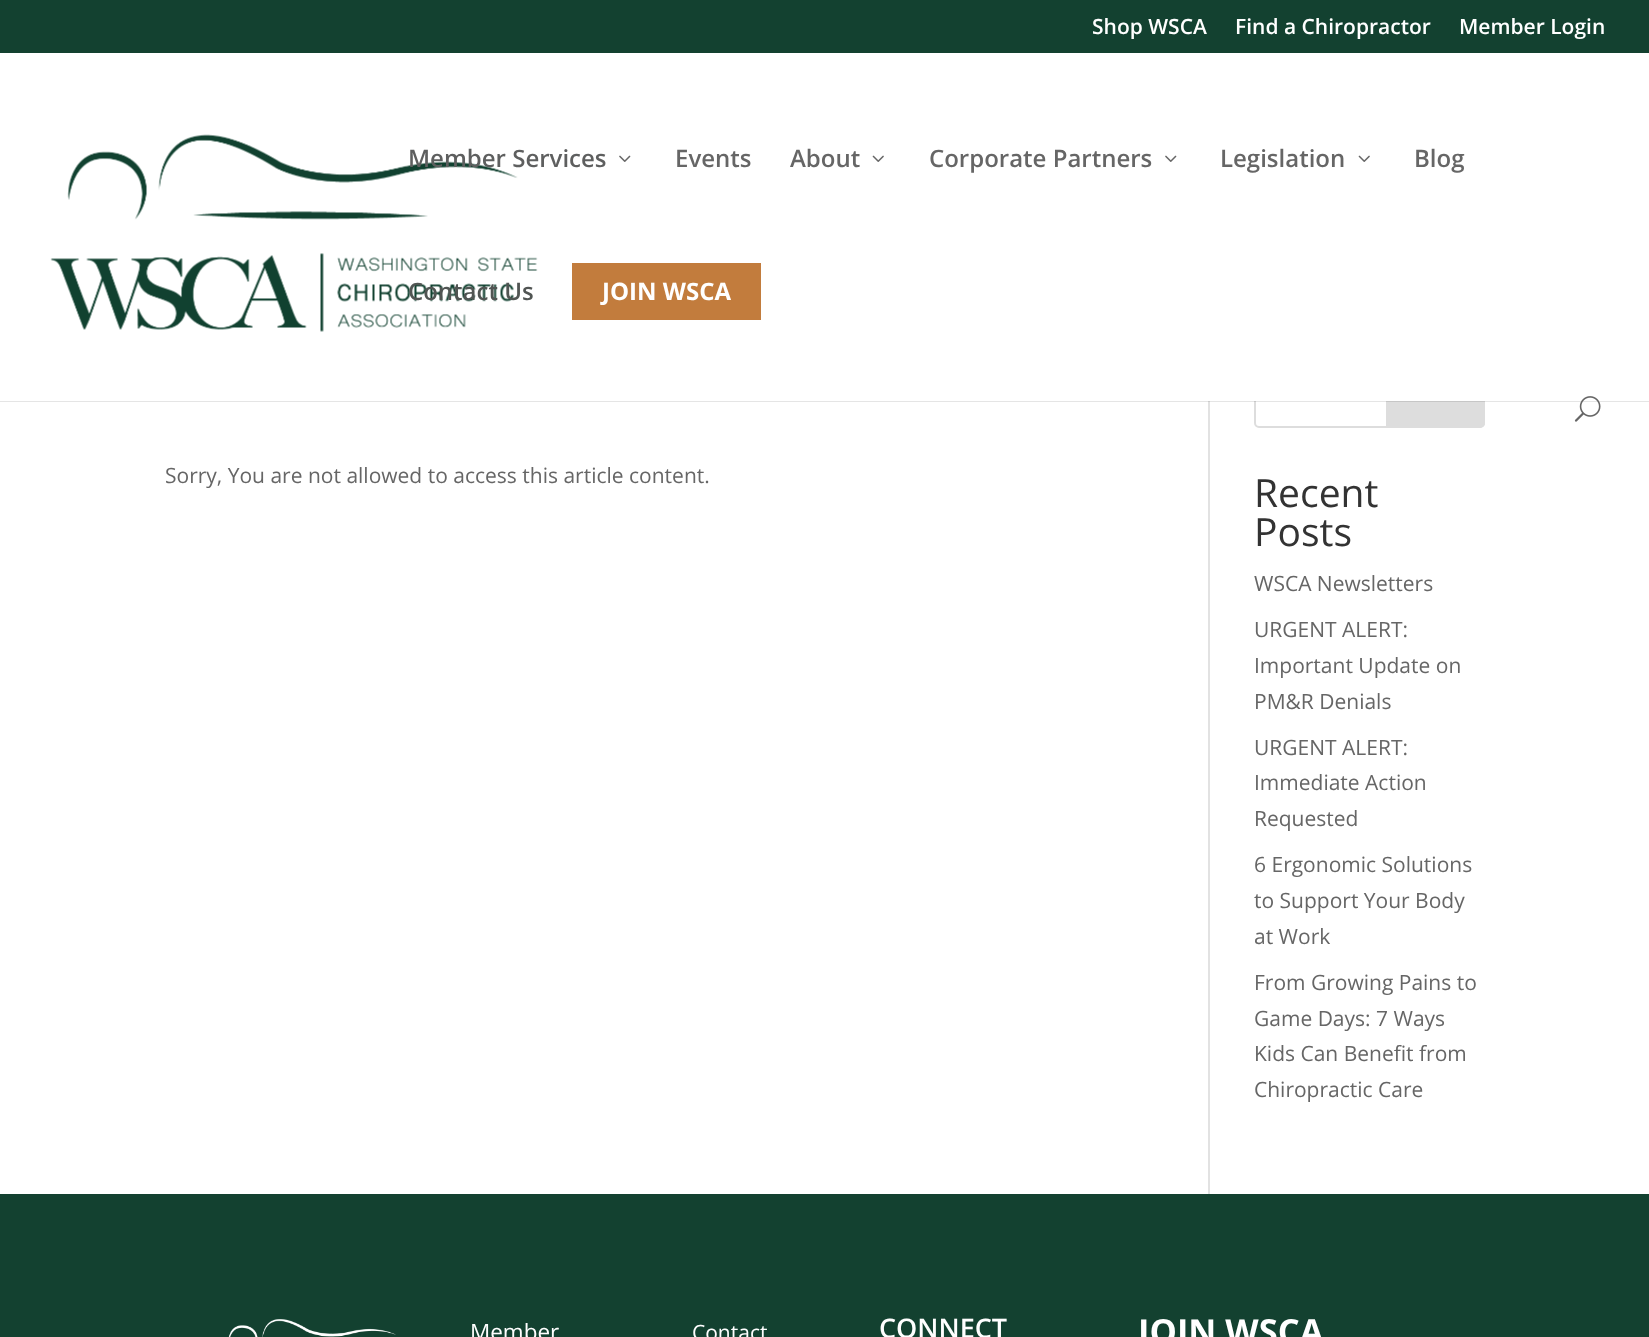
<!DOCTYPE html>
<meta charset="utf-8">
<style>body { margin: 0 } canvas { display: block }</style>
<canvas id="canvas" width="1649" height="1337"></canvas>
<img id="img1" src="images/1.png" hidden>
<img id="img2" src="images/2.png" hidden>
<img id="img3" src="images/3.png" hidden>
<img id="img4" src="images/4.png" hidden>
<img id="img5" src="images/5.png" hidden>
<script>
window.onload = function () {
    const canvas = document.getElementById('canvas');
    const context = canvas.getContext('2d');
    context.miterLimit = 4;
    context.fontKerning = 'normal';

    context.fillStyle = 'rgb(255, 255, 255)';
    context.fillRect(0, 0, 1649, 1337);
    context.fillStyle = 'rgb(19, 65, 48)';
    context.fillRect(0, 0, 1649, 53);
    context.fillStyle = 'rgb(226, 226, 226)';
    context.fillRect(1208, 401, 2, 793);
    context.beginPath();
    context.roundRect(1255, 369, 229, 58, 4);
    context.strokeStyle = 'rgb(221, 221, 221)';
    context.lineWidth = 2;
    context.stroke();
    context.fillStyle = 'rgb(221, 221, 221)';
    context.beginPath();
    context.roundRect(1387, 369, 97, 58, [0, 4, 4, 0]);
    context.fill();
    context.stroke();
    context.fillStyle = 'rgba(0, 0, 0, 0.1)';
    context.fillRect(0, 401, 1649, 1);
    context.fillStyle = 'rgb(255, 255, 255)';
    context.fillRect(1254, 368, 231, 33);
    context.drawImage(document.getElementById('img1'), 50, 134, 488, 198);
    context.drawImage(document.getElementById('img2'), 619, 155, 12, 7);
    context.drawImage(document.getElementById('img3'), 872, 155, 12, 7);
    context.drawImage(document.getElementById('img2'), 1165, 155, 12, 7);
    context.drawImage(document.getElementById('img3'), 1358, 155, 12, 7);
    context.fillStyle = 'rgb(194, 124, 61)';
    context.fillRect(572, 263, 189, 57);
    context.drawImage(document.getElementById('img4'), 1574, 396, 27, 26);
    context.fillStyle = 'rgb(19, 65, 48)';
    context.fillRect(0, 1194, 1649, 143);
    context.drawImage(document.getElementById('img5'), 228, 1319, 168, 18);
    context.font = '600 21px Open Sans';
    context.fillStyle = 'rgb(255, 255, 255)';
    context.fillText('Shop WSCA', 1092, 34);
    context.fillText('Find a Chiropractor', 1235, 34);
    context.fillText('Member Login', 1459, 34);
    context.font = '600 24px Open Sans';
    context.fillStyle = 'rgb(94, 95, 95)';
    context.fillText('Member Services', 408, 167);
    context.fillStyle = 'rgb(102, 102, 102)';
    context.fillText('Events', 675, 167);
    context.fillText('About', 790, 167);
    context.fillText('Corporate Partners', 929, 167);
    context.fillText('Legislation', 1220, 167);
    context.fillText('Blog', 1414, 167);
    context.fillStyle = 'rgb(81, 85, 83)';
    context.fillText('Contact Us', 408, 300);
    context.font = 'bold 24px Open Sans';
    context.fillStyle = 'rgb(255, 255, 255)';
    context.fillText('JOIN WSCA', 602, 300);
    context.font = '21px Open Sans';
    context.fillStyle = 'rgb(102, 102, 102)';
    context.fillText('Sorry, You are not allowed to access this article content.', 165, 483);
    context.font = '39px Open Sans';
    context.fillStyle = 'rgb(51, 51, 51)';
    context.fillText('Recent', 1254, 507);
    context.fillText('Posts', 1254, 546);
    context.font = '21px Open Sans';
    context.fillStyle = 'rgb(102, 102, 102)';
    context.fillText('WSCA Newsletters', 1254, 591);
    context.fillText('URGENT ALERT:', 1254, 637);
    context.fillText('Important Update on', 1254, 673);
    context.fillText('PM&R Denials', 1254, 709);
    context.fillText('URGENT ALERT:', 1254, 755);
    context.fillText('Immediate Action', 1254, 790);
    context.fillText('Requested', 1254, 826);
    context.fillText('6 Ergonomic Solutions', 1254, 872);
    context.fillText('to Support Your Body', 1254, 908);
    context.fillText('at Work', 1254, 944);
    context.fillText('From Growing Pains to', 1254, 990);
    context.fillText('Game Days: 7 Ways', 1254, 1026);
    context.fillText('Kids Can Benefit from', 1254, 1061);
    context.fillText('Chiropractic Care', 1254, 1097);
    context.font = '22.5px Open Sans';
    context.fillStyle = 'rgb(255, 255, 255)';
    context.fillText('Member', 470, 1340);
    context.font = '21px Open Sans';
    context.fillText('Contact', 692, 1340);
    context.font = '600 27px Open Sans';
    context.fillText('CONNECT', 879, 1338);
    context.font = 'bold 34.5px Open Sans';
    context.fillText('JOIN WSCA', 1138, 1344);
};
</script>
